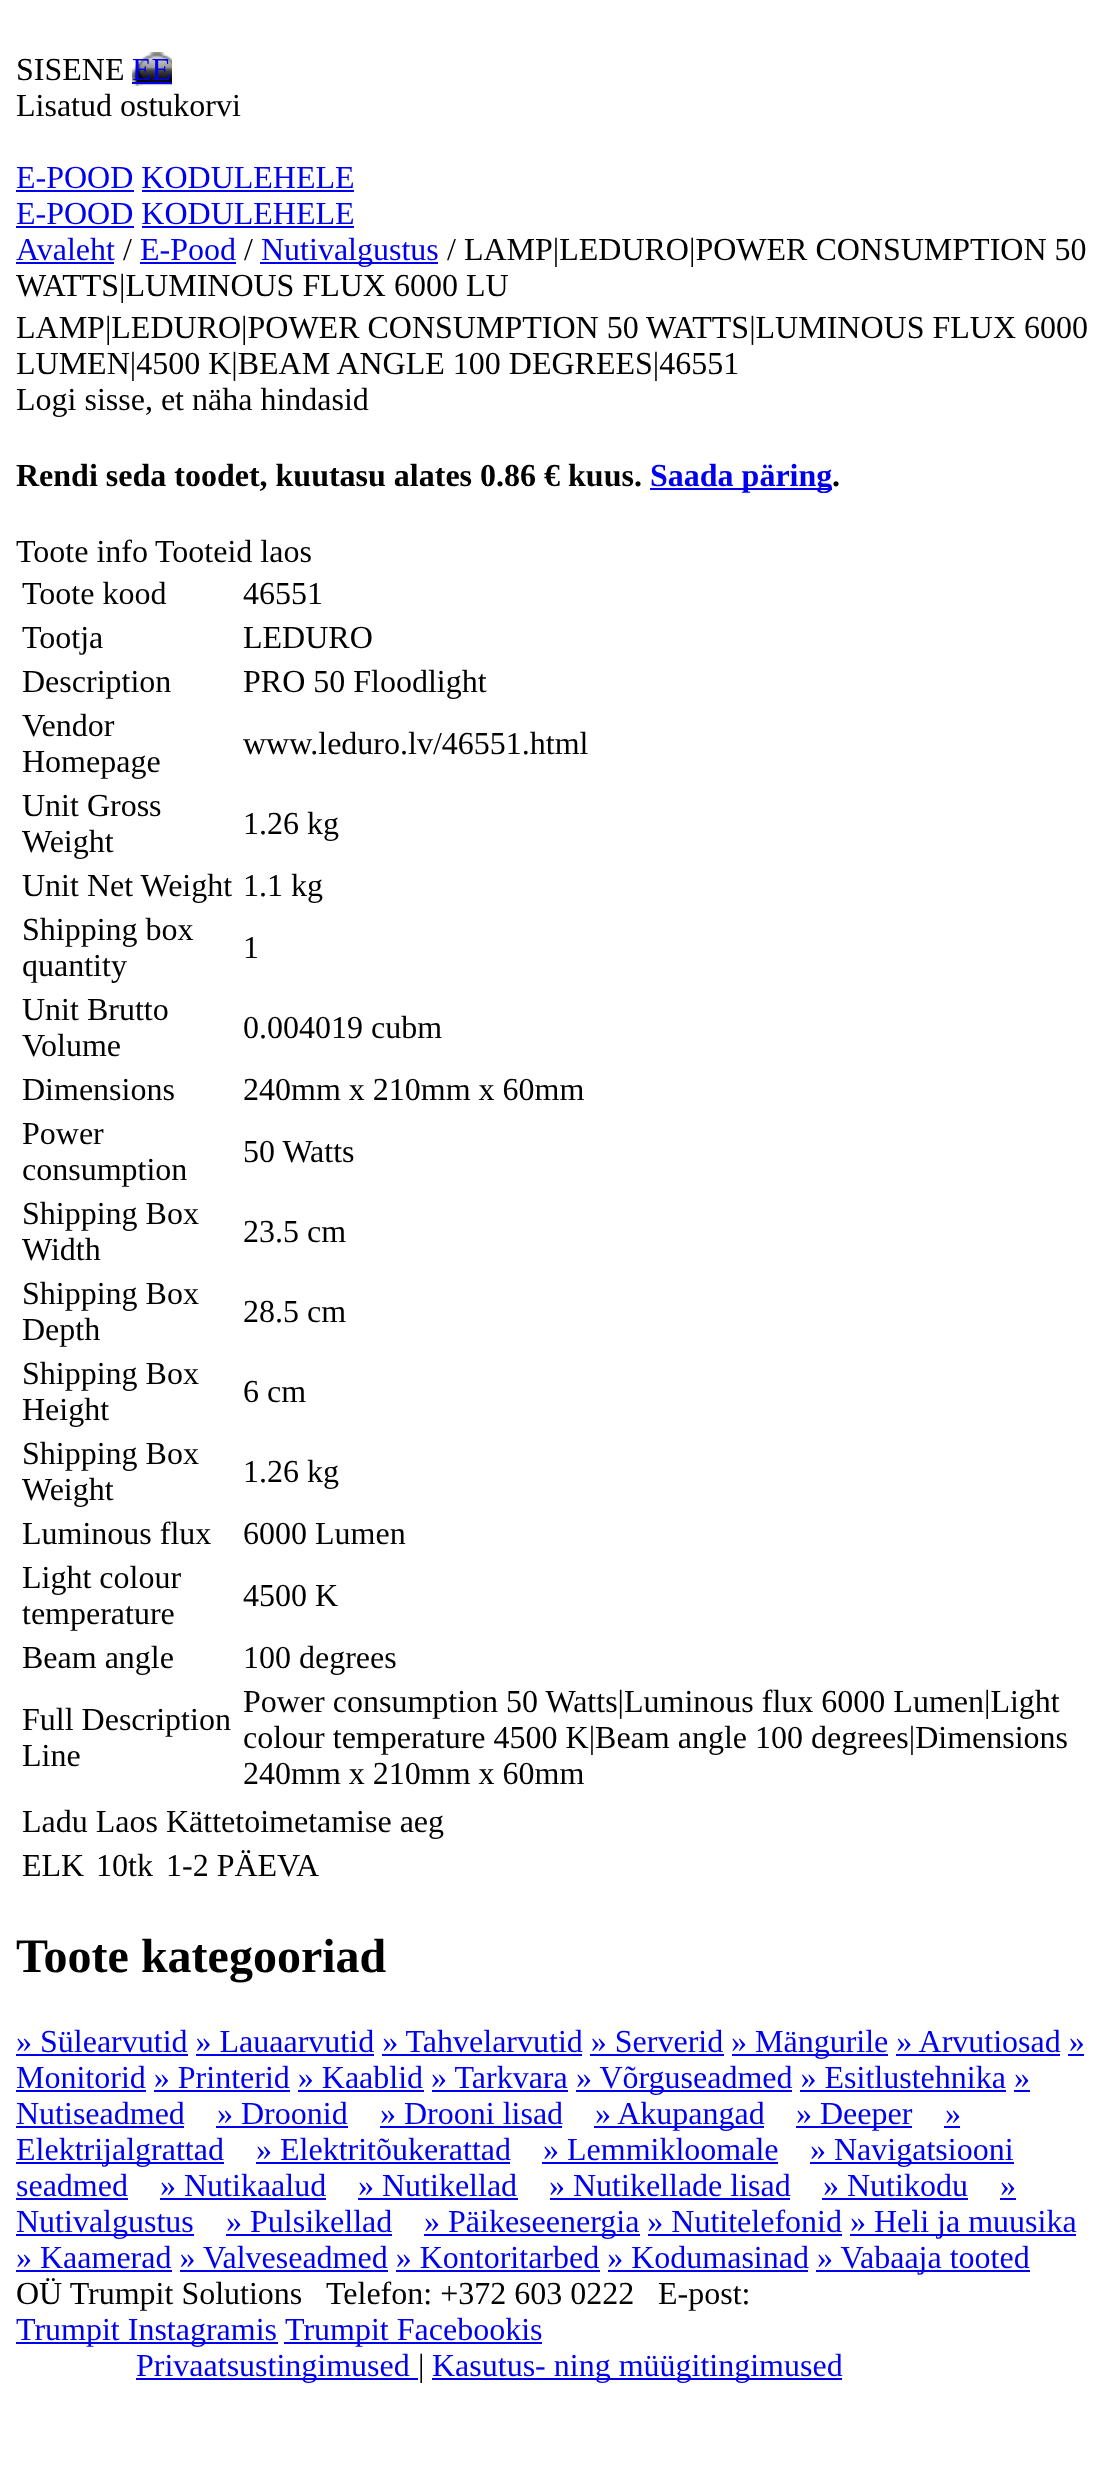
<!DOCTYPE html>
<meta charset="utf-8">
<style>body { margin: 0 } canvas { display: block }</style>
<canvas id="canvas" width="1116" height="2486"></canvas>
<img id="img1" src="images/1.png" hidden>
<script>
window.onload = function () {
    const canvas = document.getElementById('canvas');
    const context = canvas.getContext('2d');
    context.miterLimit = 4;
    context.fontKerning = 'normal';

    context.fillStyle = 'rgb(255, 255, 255)';
    context.fillRect(0, 0, 1116, 2486);
    context.drawImage(document.getElementById('img1'), 132, 52, 40, 34);
    context.fillStyle = 'rgb(0, 0, 238)';
    context.fillRect(132, 82, 40, 2);
    context.fillRect(16, 190, 118, 2);
    context.fillRect(142, 190, 212, 2);
    context.fillRect(16, 226, 118, 2);
    context.fillRect(142, 226, 212, 2);
    context.fillRect(16, 262, 98, 2);
    context.fillRect(140, 262, 96, 2);
    context.fillRect(260, 262, 178, 2);
    context.fillRect(650, 488, 182, 2);
    context.fillRect(16, 2054, 172, 2);
    context.fillRect(732, 2054, 156, 2);
    context.fillRect(196, 2054, 178, 2);
    context.fillRect(382, 2054, 200, 2);
    context.fillRect(590, 2054, 134, 2);
    context.fillRect(896, 2054, 164, 2);
    context.fillRect(1068, 2054, 16, 2);
    context.fillRect(16, 2090, 130, 2);
    context.fillRect(576, 2090, 216, 2);
    context.fillRect(154, 2090, 136, 2);
    context.fillRect(298, 2090, 126, 2);
    context.fillRect(432, 2090, 136, 2);
    context.fillRect(800, 2090, 206, 2);
    context.fillRect(1014, 2090, 16, 2);
    context.fillRect(16, 2126, 168, 2);
    context.fillRect(216, 2126, 132, 2);
    context.fillRect(380, 2126, 182, 2);
    context.fillRect(594, 2126, 170, 2);
    context.fillRect(796, 2126, 116, 2);
    context.fillRect(944, 2126, 16, 2);
    context.fillRect(16, 2162, 208, 2);
    context.fillRect(256, 2162, 254, 2);
    context.fillRect(542, 2162, 236, 2);
    context.fillRect(810, 2162, 204, 2);
    context.fillRect(16, 2198, 112, 2);
    context.fillRect(160, 2198, 166, 2);
    context.fillRect(358, 2198, 160, 2);
    context.fillRect(550, 2198, 240, 2);
    context.fillRect(822, 2198, 146, 2);
    context.fillRect(1000, 2198, 16, 2);
    context.fillRect(16, 2234, 178, 2);
    context.fillRect(226, 2234, 166, 2);
    context.fillRect(424, 2234, 216, 2);
    context.fillRect(850, 2234, 226, 2);
    context.fillRect(648, 2234, 194, 2);
    context.fillRect(16, 2270, 156, 2);
    context.fillRect(816, 2270, 214, 2);
    context.fillRect(180, 2270, 208, 2);
    context.fillRect(396, 2270, 204, 2);
    context.fillRect(608, 2270, 200, 2);
    context.fillRect(16, 2342, 262, 2);
    context.fillRect(284, 2342, 258, 2);
    context.fillRect(136, 2378, 282, 2);
    context.fillRect(432, 2378, 410, 2);
    context.font = '32px Liberation Serif';
    context.fillStyle = 'rgb(0, 0, 0)';
    context.fillText('SISENE', 16, 80);
    context.fillStyle = 'rgb(0, 0, 238)';
    context.fillText('EE', 132, 80);
    context.fillStyle = 'rgb(0, 0, 0)';
    context.fillText('Lisatud ostukorvi', 16, 116);
    context.fillStyle = 'rgb(0, 0, 238)';
    context.fillText('E-POOD KODULEHELE', 16, 188);
    context.fillText('E-POOD KODULEHELE', 16, 224);
    context.fillText('Avaleht', 16, 260);
    context.fillStyle = 'rgb(0, 0, 0)';
    context.fillText('/', 123, 260);
    context.fillStyle = 'rgb(0, 0, 238)';
    context.fillText('E-Pood', 140, 260);
    context.fillStyle = 'rgb(0, 0, 0)';
    context.fillText('/', 244, 260);
    context.fillStyle = 'rgb(0, 0, 238)';
    context.fillText('Nutivalgustus', 261, 260);
    context.fillStyle = 'rgb(0, 0, 0)';
    context.fillText('/ LAMP|LEDURO|POWER CONSUMPTION 50', 447, 260);
    context.fillText('WATTS|LUMINOUS FLUX 6000 LU', 16, 296);
    context.fillText('LAMP|LEDURO|POWER CONSUMPTION 50 WATTS|LUMINOUS FLUX 6000', 16, 338);
    context.fillText('LUMEN|4500 K|BEAM ANGLE 100 DEGREES|46551', 16, 374);
    context.fillText('Logi sisse, et näha hindasid', 16, 410);
    context.font = 'bold 32px Liberation Serif';
    context.fillText('Rendi seda toodet, kuutasu alates 0.86 € kuus.', 16, 486);
    context.fillStyle = 'rgb(0, 0, 238)';
    context.fillText('Saada päring', 650, 486);
    context.fillStyle = 'rgb(0, 0, 0)';
    context.fillText('.', 832, 486);
    context.font = '32px Liberation Serif';
    context.fillText('Toote info', 16, 562);
    context.fillText('Tooteid laos', 155, 562);
    context.fillText('Toote kood', 22, 604);
    context.fillText('46551', 243, 604);
    context.fillText('Tootja', 22, 648);
    context.fillText('LEDURO', 243, 648);
    context.fillText('Description', 22, 692);
    context.fillText('PRO 50 Floodlight', 243, 692);
    context.fillText('Vendor', 22, 736);
    context.fillText('Homepage', 22, 772);
    context.fillText('www.leduro.lv/46551.html', 243, 754);
    context.fillText('Unit Gross', 22, 816);
    context.fillText('Weight', 22, 852);
    context.fillText('1.26 kg', 243, 834);
    context.fillText('Unit Net Weight', 22, 896);
    context.fillText('1.1 kg', 243, 896);
    context.fillText('Shipping box', 22, 940);
    context.fillText('quantity', 22, 976);
    context.fillText('1', 243, 958);
    context.fillText('Unit Brutto', 22, 1020);
    context.fillText('Volume', 22, 1056);
    context.fillText('0.004019 cubm', 243, 1038);
    context.fillText('Dimensions', 22, 1100);
    context.fillText('240mm x 210mm x 60mm', 243, 1100);
    context.fillText('Power', 22, 1144);
    context.fillText('consumption', 22, 1180);
    context.fillText('50 Watts', 243, 1162);
    context.fillText('Shipping Box', 22, 1224);
    context.fillText('Width', 22, 1260);
    context.fillText('23.5 cm', 243, 1242);
    context.fillText('Shipping Box', 22, 1304);
    context.fillText('Depth', 22, 1340);
    context.fillText('28.5 cm', 243, 1322);
    context.fillText('Shipping Box', 22, 1384);
    context.fillText('Height', 22, 1420);
    context.fillText('6 cm', 243, 1402);
    context.fillText('Shipping Box', 22, 1464);
    context.fillText('Weight', 22, 1500);
    context.fillText('1.26 kg', 243, 1482);
    context.fillText('Luminous flux', 22, 1544);
    context.fillText('6000 Lumen', 243, 1544);
    context.fillText('Light colour', 22, 1588);
    context.fillText('temperature', 22, 1624);
    context.fillText('4500 K', 243, 1606);
    context.fillText('Beam angle', 22, 1668);
    context.fillText('100 degrees', 243, 1668);
    context.fillText('Full Description', 22, 1730);
    context.fillText('Line', 22, 1766);
    context.fillText('Power consumption 50 Watts|Luminous flux 6000 Lumen|Light', 243, 1712);
    context.fillText('colour temperature 4500 K|Beam angle 100 degrees|Dimensions', 243, 1748);
    context.fillText('240mm x 210mm x 60mm', 243, 1784);
    context.fillText('Ladu Laos Kättetoimetamise aeg', 22, 1832);
    context.fillText('ELK', 22, 1876);
    context.fillText('10tk', 96, 1876);
    context.fillText('1-2 PÄEVA', 166, 1876);
    context.font = 'bold 48px Liberation Serif';
    context.fillText('Toote kategooriad', 16, 1972);
    context.font = '32px Liberation Serif';
    context.fillStyle = 'rgb(0, 0, 238)';
    context.fillText('» Sülearvutid » Lauaarvutid » Tahvelarvutid » Serverid', 16, 2052);
    context.fillText('» Mängurile » Arvutiosad »', 731, 2052);
    context.fillText('Monitorid » Printerid » Kaablid » Tarkvara', 16, 2088);
    context.fillText('» Võrguseadmed » Esitlustehnika »', 576, 2088);
    context.fillText('Nutiseadmed', 16, 2124);
    context.fillText('» Droonid', 217, 2124);
    context.fillText('» Drooni lisad', 380, 2124);
    context.fillText('» Akupangad', 595, 2124);
    context.fillText('» Deeper', 796, 2124);
    context.fillText('»', 945, 2124);
    context.fillText('Elektrijalgrattad', 16, 2160);
    context.fillText('» Elektritõukerattad', 256, 2160);
    context.fillText('» Lemmikloomale', 543, 2160);
    context.fillText('» Navigatsiooni', 810, 2160);
    context.fillText('seadmed', 16, 2196);
    context.fillText('» Nutikaalud', 160, 2196);
    context.fillText('» Nutikellad', 358, 2196);
    context.fillText('» Nutikellade lisad', 549, 2196);
    context.fillText('» Nutikodu', 823, 2196);
    context.fillText('»', 1000, 2196);
    context.fillText('Nutivalgustus', 16, 2232);
    context.fillText('» Pulsikellad', 226, 2232);
    context.fillText('» Päikeseenergia » Nutitelefonid', 424, 2232);
    context.fillText('» Heli ja muusika', 850, 2232);
    context.fillText('» Kaamerad » Valveseadmed » Kontoritarbed » Kodumasinad', 16, 2268);
    context.fillText('» Vabaaja tooted', 817, 2268);
    context.fillStyle = 'rgb(0, 0, 0)';
    context.fillText('OÜ Trumpit Solutions', 16, 2304);
    context.fillText('Telefon: +372 603 0222', 326, 2304);
    context.fillText('E-post:', 658, 2304);
    context.fillStyle = 'rgb(0, 0, 238)';
    context.fillText('Trumpit Instagramis', 16, 2340);
    context.fillText('Trumpit Facebookis', 285, 2340);
    context.fillText('Privaatsustingimused', 136, 2376);
    context.fillStyle = 'rgb(0, 0, 0)';
    context.fillText('|', 418, 2376);
    context.fillStyle = 'rgb(0, 0, 238)';
    context.fillText('Kasutus- ning müügitingimused', 432, 2376);
};
</script>
